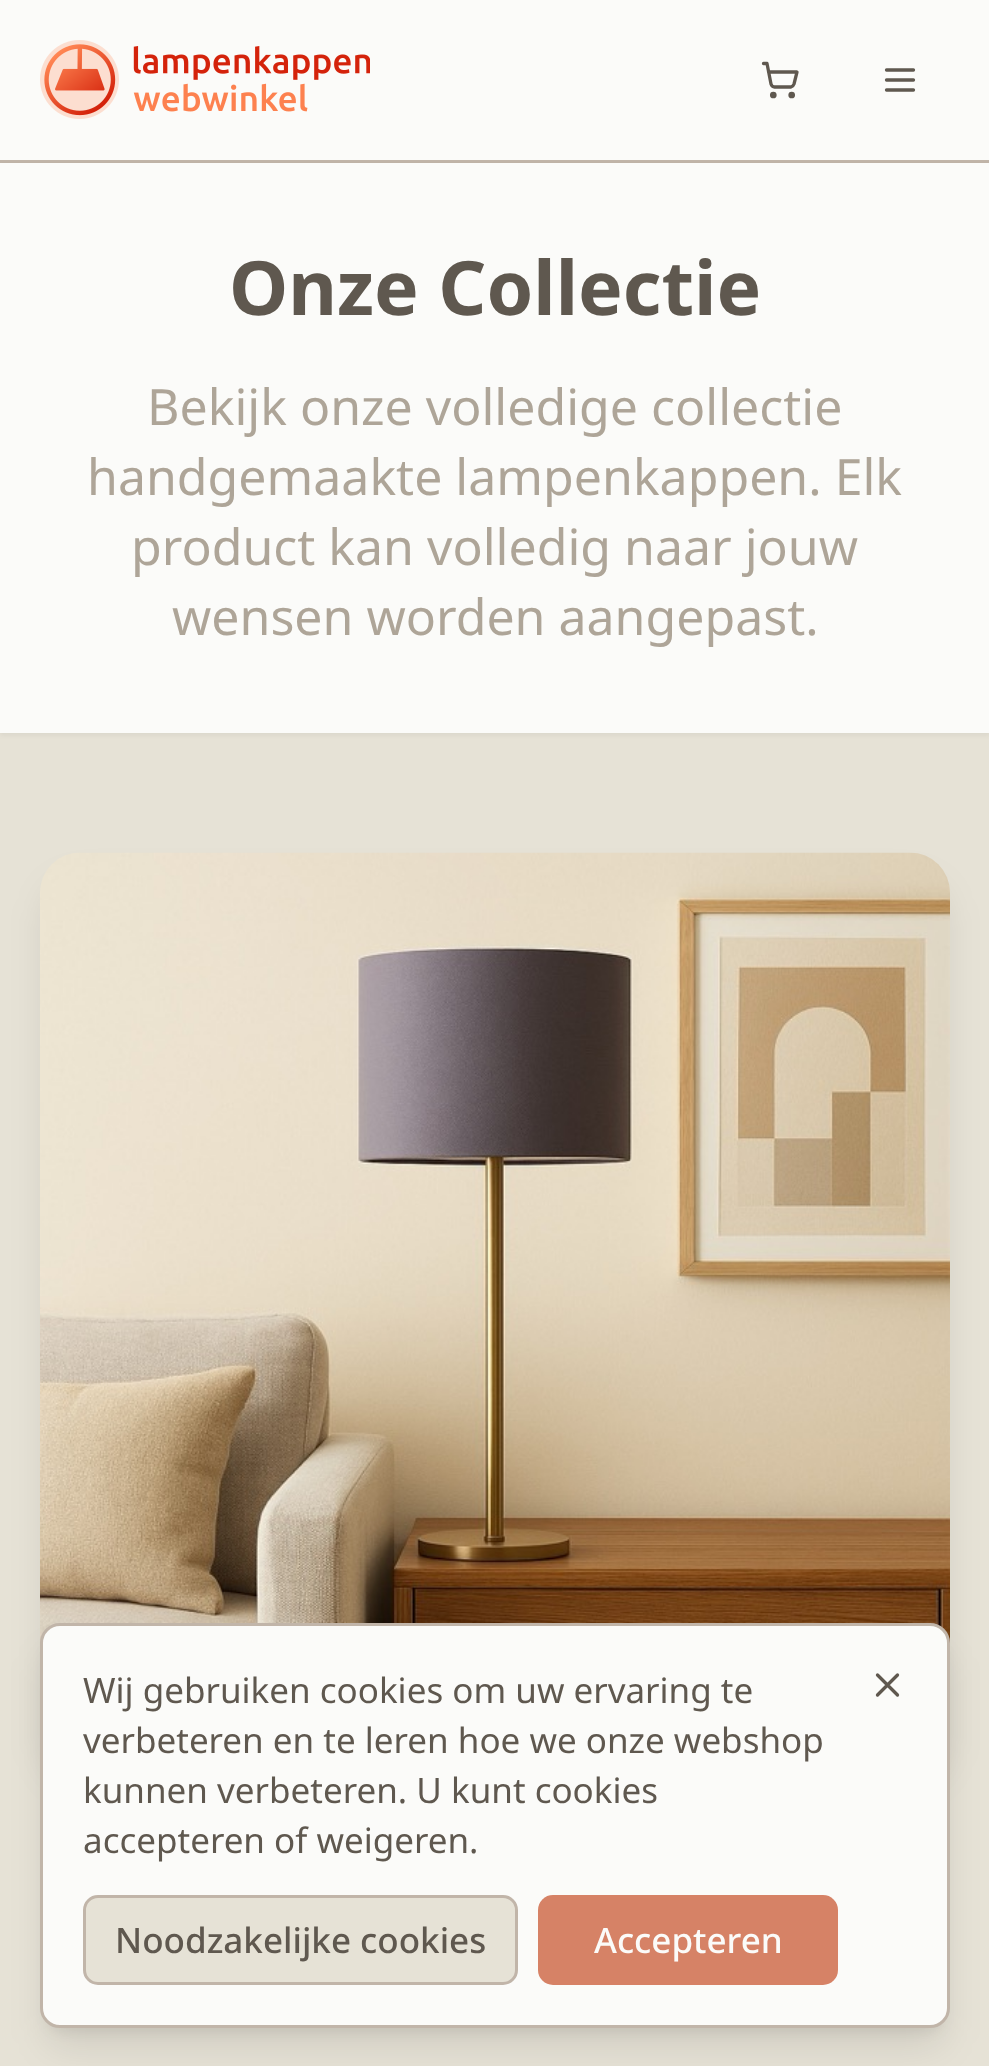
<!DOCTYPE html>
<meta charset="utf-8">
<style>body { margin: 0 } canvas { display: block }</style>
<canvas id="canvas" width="989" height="2066"></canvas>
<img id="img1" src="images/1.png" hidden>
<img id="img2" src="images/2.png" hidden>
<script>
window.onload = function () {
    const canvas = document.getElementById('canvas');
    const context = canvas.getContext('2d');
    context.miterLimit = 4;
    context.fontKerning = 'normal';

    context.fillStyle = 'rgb(230, 226, 214)';
    context.fillRect(0, 0, 989, 2066);
    context.fillStyle = 'rgb(251, 251, 249)';
    context.fillRect(0, 0, 989, 160);
    context.fillStyle = 'rgb(193, 181, 169)';
    context.fillRect(0, 160, 989, 3);
    context.drawImage(document.getElementById('img1'), 40, 40, 330, 79);
    context.beginPath();
    context.arc(773.3, 95, 1.7, 0, 2 * Math.PI);
    context.strokeStyle = 'rgb(95, 88, 79)';
    context.lineWidth = 3.3;
    context.stroke();
    context.beginPath();
    context.arc(791.7, 95, 1.7, 0, 2 * Math.PI);
    context.stroke();
    context.beginPath();
    context.moveTo(763.5, 63.5);
    context.lineTo(767, 63.5);
    context.lineTo(771, 84);
    context.bezierCurveTo(771.5, 85.5, 773, 87, 774.5, 87);
    context.lineTo(791, 87);
    context.bezierCurveTo(792.5, 86.5, 793.5, 85.5, 794, 84);
    context.lineTo(797, 72);
    context.lineTo(768.5, 72);
    context.lineCap = 'round';
    context.lineJoin = 'round';
    context.stroke();
    context.beginPath();
    context.moveTo(886.5, 80);
    context.lineTo(913.5, 80);
    context.moveTo(886.5, 70);
    context.lineTo(913.5, 70);
    context.moveTo(886.5, 90);
    context.lineTo(913.5, 90);
    context.stroke();
    context.fillStyle = 'rgba(0, 0, 0, 0.05)';
    context.filter = 'blur(2.5px)';
    context.beginPath();
    context.rect(0, 165, 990, 570);
    context.fill();
    context.filter = 'none';
    context.fillStyle = 'rgb(251, 251, 249)';
    context.fillRect(0, 163, 989, 570);
    context.fillStyle = 'rgba(0, 0, 0, 0.1)';
    context.filter = 'blur(19px)';
    context.beginPath();
    context.roundRect(48, 885, 895, 895, 33);
    context.fill();
    context.filter = 'none';
    context.drawImage(document.getElementById('img2'), 40, 852, 910, 791);
    context.filter = 'blur(7.5px)';
    context.beginPath();
    context.roundRect(50, 1643, 890, 385, 10);
    context.fill();
    context.filter = 'none';
    context.filter = 'blur(19px)';
    context.beginPath();
    context.roundRect(48, 1655, 895, 390, 13);
    context.fill();
    context.filter = 'none';
    context.fillStyle = 'rgb(251, 251, 249)';
    context.beginPath();
    context.roundRect(41.5, 1624.5, 907, 402, 18.5);
    context.fill();
    context.strokeStyle = 'rgb(193, 181, 169)';
    context.lineWidth = 3;
    context.lineJoin = 'miter';
    context.stroke();
    context.fillStyle = 'rgb(230, 226, 214)';
    context.beginPath();
    context.roundRect(84.5, 1896.5, 432, 87, 13.5);
    context.fill();
    context.stroke();
    context.fillStyle = 'rgb(214, 130, 102)';
    context.beginPath();
    context.roundRect(538, 1895, 300, 90, 15);
    context.fill();
    context.beginPath();
    context.moveTo(897.5, 1675);
    context.lineTo(877.5, 1695);
    context.moveTo(877.5, 1675);
    context.lineTo(897.5, 1695);
    context.strokeStyle = 'rgb(95, 88, 79)';
    context.lineWidth = 3.3;
    context.lineJoin = 'round';
    context.stroke();
    context.font = 'bold 75px Noto Sans';
    context.fillStyle = 'rgb(95, 88, 79)';
    context.fillText('Onze Collectie', 229, 315);
    context.font = '50px Noto Sans';
    context.fillStyle = 'rgb(174, 165, 152)';
    context.fillText('Bekijk onze volledige collectie', 147, 425);
    context.fillText('handgemaakte lampenkappen. Elk', 87, 495);
    context.fillText('product kan volledig naar jouw', 131, 565);
    context.fillText('wensen worden aangepast.', 172, 635);
    context.font = '35px Noto Sans';
    context.fillStyle = 'rgb(95, 88, 79)';
    context.fillText('Wij gebruiken cookies om uw ervaring te', 83, 1703);
    context.fillText('verbeteren en te leren hoe we onze webshop', 83, 1753);
    context.fillText('kunnen verbeteren. U kunt cookies', 83, 1803);
    context.fillText('accepteren of weigeren.', 83, 1853);
    context.font = '500 35px Noto Sans';
    context.fillText('Noodzakelijke cookies', 115, 1953);
    context.fillStyle = 'rgb(251, 251, 249)';
    context.fillText('Accepteren', 594, 1953);
};
</script>
